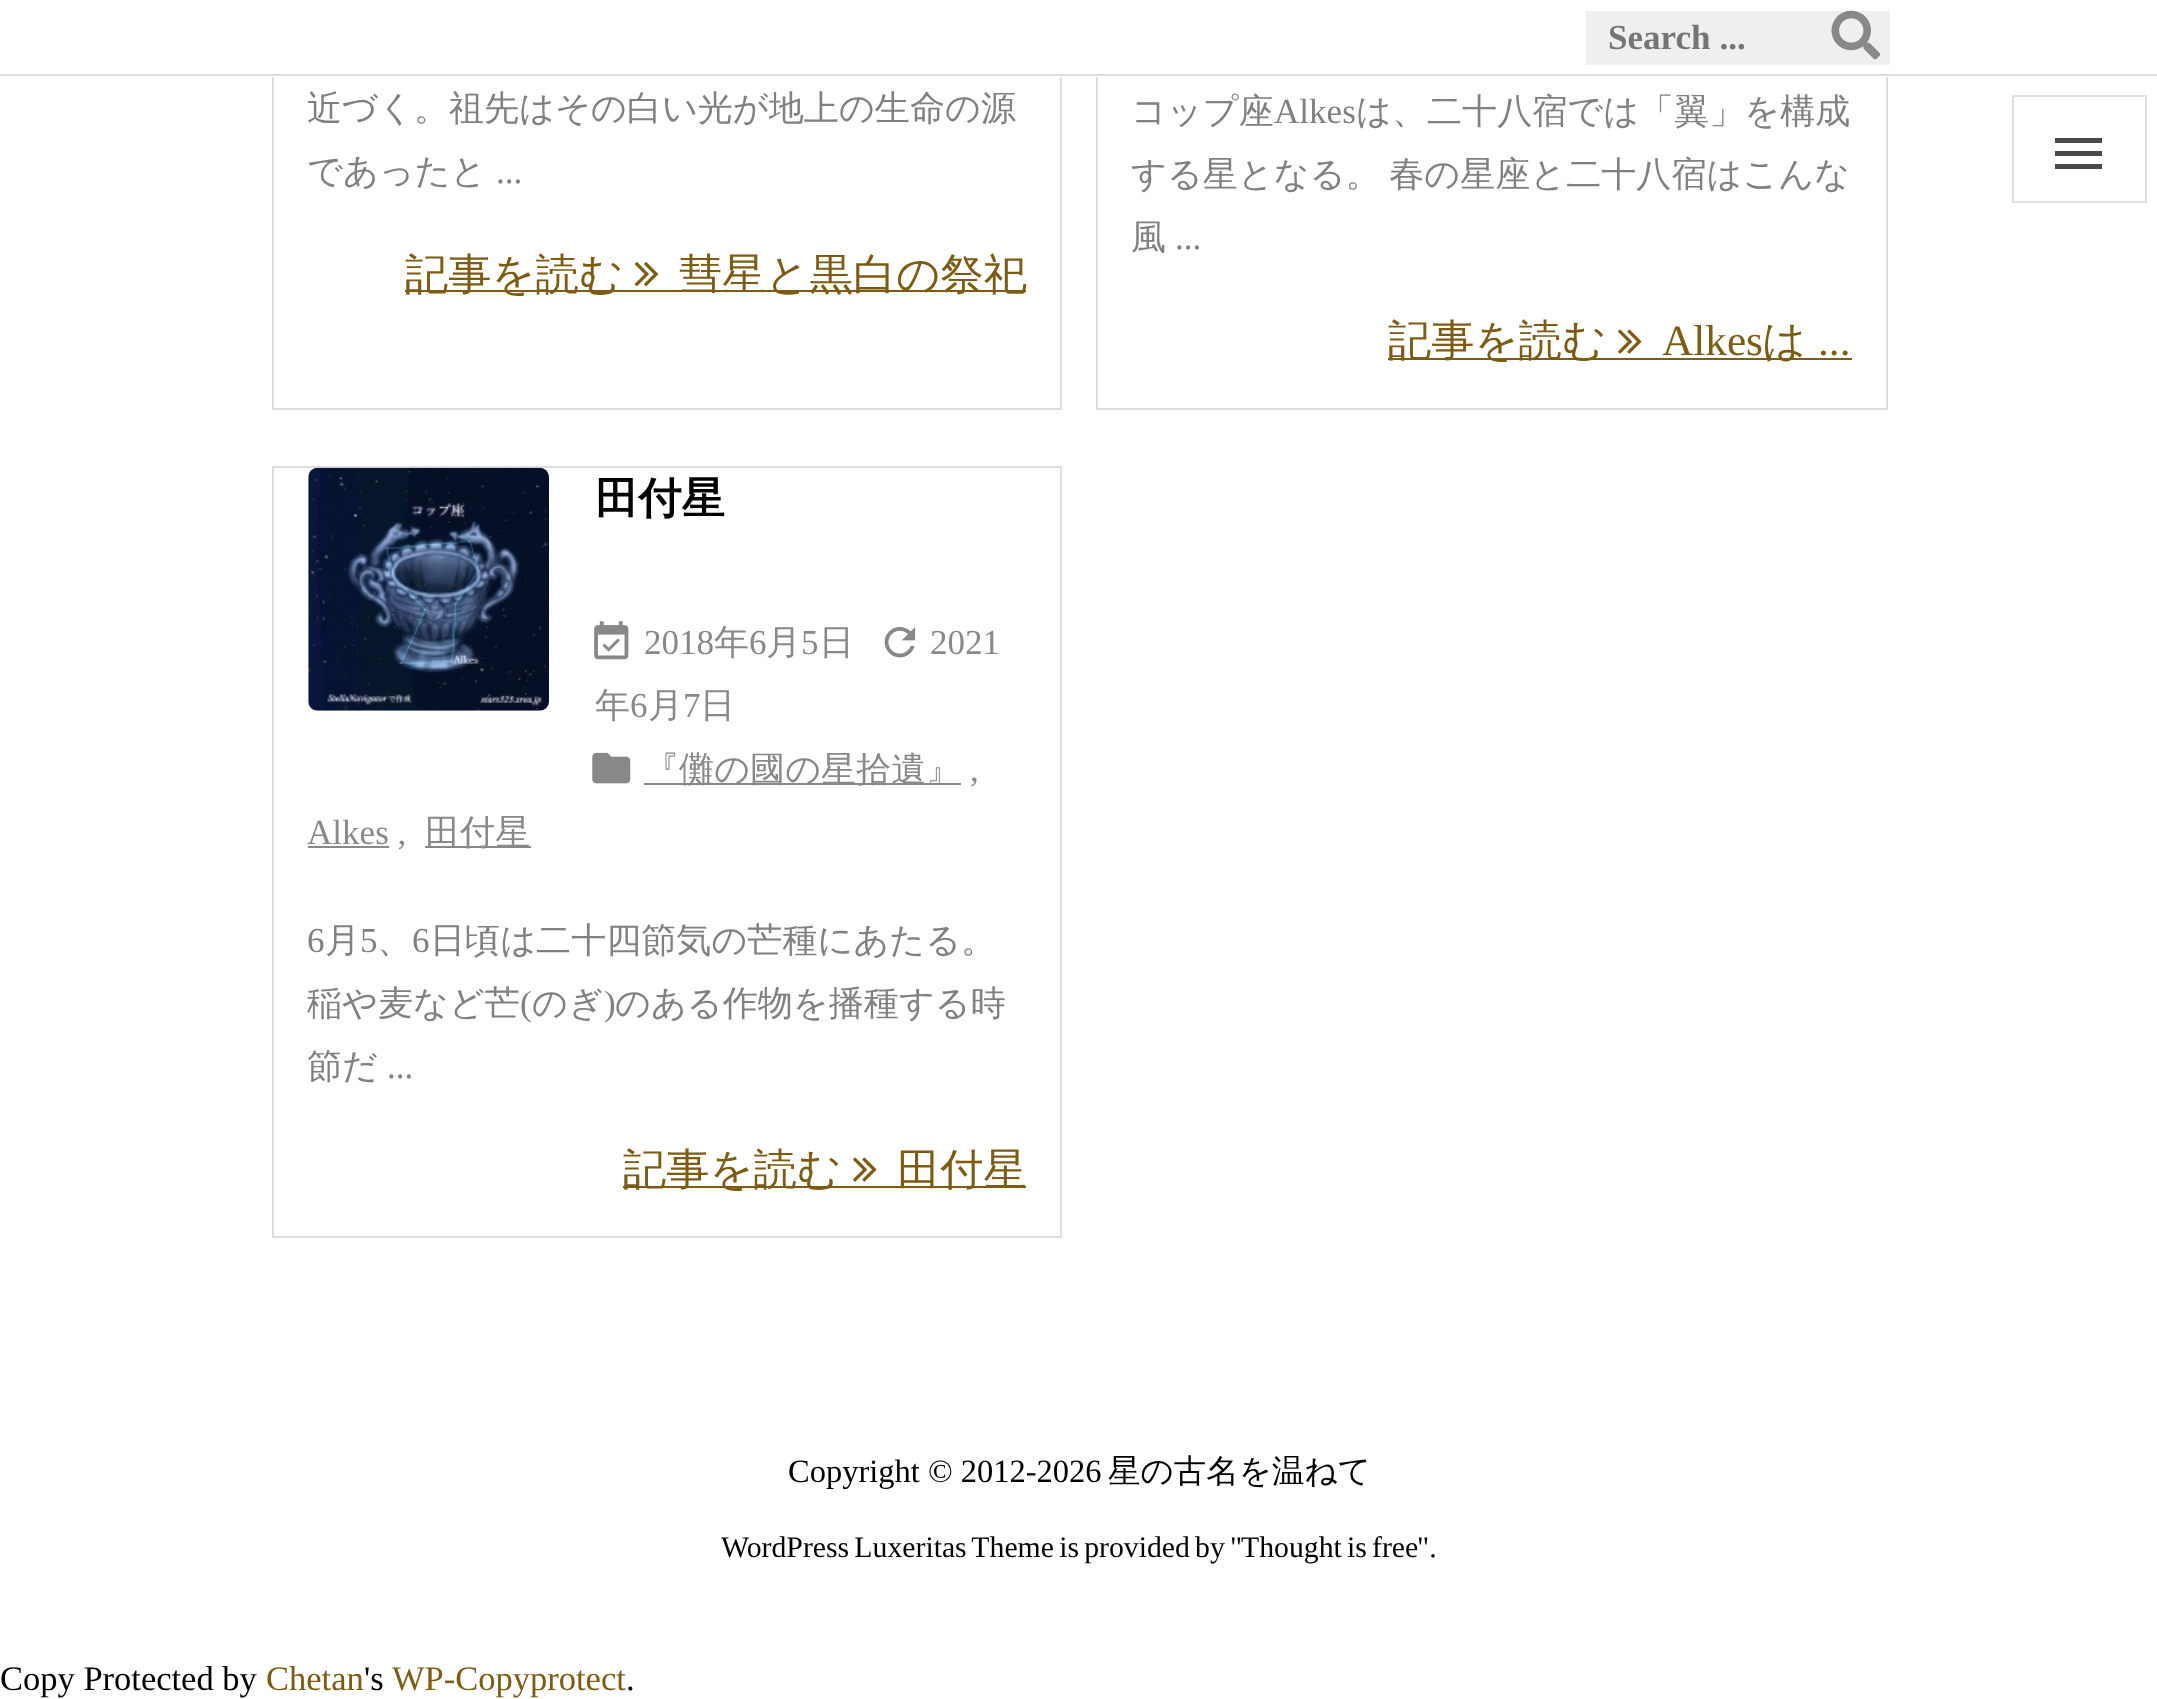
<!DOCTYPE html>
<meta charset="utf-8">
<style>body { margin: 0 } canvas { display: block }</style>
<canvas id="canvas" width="2157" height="1699"></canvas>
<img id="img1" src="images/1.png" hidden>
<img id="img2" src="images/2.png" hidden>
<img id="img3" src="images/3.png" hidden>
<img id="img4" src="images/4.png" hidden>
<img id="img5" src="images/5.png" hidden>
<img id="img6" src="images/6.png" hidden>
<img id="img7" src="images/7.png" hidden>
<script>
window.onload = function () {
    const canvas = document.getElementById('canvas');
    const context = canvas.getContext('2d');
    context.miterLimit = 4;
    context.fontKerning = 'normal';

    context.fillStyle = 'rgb(255, 255, 255)';
    context.fillRect(0, 0, 2157, 1699);
    context.strokeStyle = 'rgb(221, 221, 221)';
    context.lineWidth = 2;
    context.strokeRect(273, -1, 788, 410);
    context.strokeRect(1097, -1, 790, 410);
    context.fillRect(272, 0, 1616, 77);
    context.fillStyle = 'rgb(221, 221, 221)';
    context.fillRect(0, 74, 2157, 2);
    context.fillStyle = 'rgb(239, 239, 239)';
    context.fillRect(1586, 11, 304, 54);
    context.drawImage(document.getElementById('img1'), 1831, 10, 50, 50);
    context.strokeStyle = 'rgb(224, 224, 224)';
    context.strokeRect(2013, 96, 133, 106);
    context.fillStyle = 'rgb(73, 73, 73)';
    context.beginPath();
    context.moveTo(2055, 138);
    context.lineTo(2102, 138);
    context.lineTo(2102, 143);
    context.lineTo(2055, 143);
    context.closePath();
    context.moveTo(2055, 156);
    context.lineTo(2055, 151);
    context.lineTo(2102, 151);
    context.lineTo(2102, 156);
    context.closePath();
    context.moveTo(2055, 169);
    context.lineTo(2055, 164);
    context.lineTo(2102, 164);
    context.lineTo(2102, 169);
    context.closePath();
    context.fill();
    context.fillStyle = 'rgb(124, 91, 19)';
    context.fillRect(405, 290, 621, 2);
    context.drawImage(document.getElementById('img2'), 634, 262, 25, 25);
    context.fillRect(1388, 358, 464, 2);
    context.drawImage(document.getElementById('img3'), 1618, 329, 24, 25);
    context.strokeStyle = 'rgb(221, 221, 221)';
    context.strokeRect(273, 467, 788, 770);
    context.drawImage(document.getElementById('img4'), 308, 467, 241, 244);
    context.drawImage(document.getElementById('img5'), 594, 621, 35, 39);
    context.drawImage(document.getElementById('img6'), 884, 627, 32, 31);
    context.drawImage(document.getElementById('img7'), 592, 752, 39, 32);
    context.fillStyle = 'rgb(136, 136, 136)';
    context.fillRect(644, 783, 317, 2);
    context.fillRect(308, 846, 81, 2);
    context.fillRect(425, 846, 106, 2);
    context.fillStyle = 'rgb(124, 91, 19)';
    context.fillRect(623, 1186, 403, 2);
    context.drawImage(document.getElementById('img3'), 853, 1157, 24, 25);
    context.font = 'bold 35.1px Liberation Serif';
    context.fillStyle = 'rgb(117, 117, 117)';
    context.fillText('Search ...', 1608, 49);
    context.font = '500 35.1px WenQuanYi Zen Hei';
    context.fillStyle = 'rgb(128, 128, 128)';
    context.fillText('近づく。祖先はその白い光が地上の生命の源', 307, 120);
    context.fillText('であったと', 307, 183);
    context.font = '35.1px Liberation Serif';
    context.fillText('...', 496, 183);
    context.font = '500 43.25px WenQuanYi Zen Hei';
    context.fillStyle = 'rgb(124, 91, 19)';
    context.fillText('記事を読む', 405, 289);
    context.fillText('彗星と黒白の祭祀', 679, 289);
    context.font = '500 35.1px WenQuanYi Zen Hei';
    context.fillStyle = 'rgb(128, 128, 128)';
    context.fillText('コップ座', 1131, 123);
    context.font = '35.1px Liberation Serif';
    context.fillText('Alkes', 1274, 123);
    context.font = '500 35.1px WenQuanYi Zen Hei';
    context.fillText('は、二十八宿では「翼」を構成', 1356, 123);
    context.wordSpacing = '-2px';
    context.fillText('する星となる。 春の星座と二十八宿はこんな', 1131, 186);
    context.wordSpacing = '0px';
    context.fillText('風', 1131, 249);
    context.font = '35.1px Liberation Serif';
    context.fillText('...', 1175, 249);
    context.font = '500 43.25px WenQuanYi Zen Hei';
    context.fillStyle = 'rgb(124, 91, 19)';
    context.fillText('記事を読む', 1388, 355);
    context.font = '43.25px Liberation Serif';
    context.fillText('Alkes', 1662, 355);
    context.font = '500 43.25px WenQuanYi Zen Hei';
    context.fillText('は', 1762, 355);
    context.font = '43.25px Liberation Serif';
    context.fillText('...', 1818, 355);
    context.font = 'bold 43.25px WenQuanYi Zen Hei';
    context.fillStyle = 'rgb(0, 0, 0)';
    context.fillText('田付星', 595, 513);
    context.font = '35.1px Liberation Serif';
    context.fillStyle = 'rgb(136, 136, 136)';
    context.fillText('2018', 644, 654);
    context.font = '500 35.1px WenQuanYi Zen Hei';
    context.fillText('年', 714, 654);
    context.font = '35.1px Liberation Serif';
    context.fillText('6', 749, 654);
    context.font = '500 35.1px WenQuanYi Zen Hei';
    context.fillText('月', 766, 654);
    context.font = '35.1px Liberation Serif';
    context.fillText('5', 801, 654);
    context.font = '500 35.1px WenQuanYi Zen Hei';
    context.fillText('日', 819, 654);
    context.font = '35.1px Liberation Serif';
    context.fillText('2021', 930, 654);
    context.font = '500 35.1px WenQuanYi Zen Hei';
    context.fillText('年', 595, 717);
    context.font = '35.1px Liberation Serif';
    context.fillText('6', 630, 717);
    context.font = '500 35.1px WenQuanYi Zen Hei';
    context.fillText('月', 648, 717);
    context.font = '35.1px Liberation Serif';
    context.fillText('7', 683, 717);
    context.font = '500 35.1px WenQuanYi Zen Hei';
    context.fillText('日', 700, 717);
    context.fillText('『儺の國の星拾遺』', 644, 781);
    context.font = '35.1px Liberation Serif';
    context.fillText(',', 970, 781);
    context.fillText('Alkes ,', 307, 844);
    context.font = '500 35.1px WenQuanYi Zen Hei';
    context.fillText('田付星', 425, 844);
    context.font = '35.1px Liberation Serif';
    context.fillStyle = 'rgb(128, 128, 128)';
    context.fillText('6', 307, 952);
    context.font = '500 35.1px WenQuanYi Zen Hei';
    context.fillText('月', 325, 952);
    context.font = '35.1px Liberation Serif';
    context.fillText('5', 360, 952);
    context.font = '500 35.1px WenQuanYi Zen Hei';
    context.fillText('、', 377, 952);
    context.font = '35.1px Liberation Serif';
    context.fillText('6', 412, 952);
    context.font = '500 35.1px WenQuanYi Zen Hei';
    context.fillText('日頃は二十四節気の芒種にあたる。', 430, 952);
    context.fillText('稲や麦など芒', 307, 1015);
    context.font = '35.1px Liberation Serif';
    context.fillText('(', 520, 1015);
    context.font = '500 35.1px WenQuanYi Zen Hei';
    context.fillText('のぎ', 532, 1015);
    context.font = '35.1px Liberation Serif';
    context.fillText(')', 604, 1015);
    context.font = '500 35.1px WenQuanYi Zen Hei';
    context.fillText('のある作物を播種する時', 615, 1015);
    context.fillText('節だ', 307, 1078);
    context.font = '35.1px Liberation Serif';
    context.fillText('...', 387, 1078);
    context.font = '500 43.25px WenQuanYi Zen Hei';
    context.fillStyle = 'rgb(124, 91, 19)';
    context.fillText('記事を読む', 623, 1184);
    context.fillText('田付星', 897, 1184);
    context.font = '32.5px Liberation Serif';
    context.fillStyle = 'rgb(0, 0, 0)';
    context.fillText('Copyright © 2012-2026', 788, 1482);
    context.font = '500 32.5px WenQuanYi Zen Hei';
    context.fillText('星の古名を温ねて', 1108, 1482);
    context.wordSpacing = '-2.25px';
    context.font = '29.75px Liberation Serif';
    context.fillText('WordPress Luxeritas Theme is provided by "', 721, 1557);
    context.fillText('Thought is free', 1241, 1557);
    context.wordSpacing = '0px';
    context.fillText('".', 1417, 1557);
    context.font = '34.5px Liberation Serif';
    context.fillText('Copy Protected by', 0, 1690);
    context.fillStyle = 'rgb(124, 91, 19)';
    context.fillText('Chetan', 266, 1690);
    context.fillStyle = 'rgb(0, 0, 0)';
    context.fillText('\'s', 364, 1690);
    context.fillStyle = 'rgb(124, 91, 19)';
    context.fillText('WP-Copyprotect', 392, 1690);
    context.fillStyle = 'rgb(0, 0, 0)';
    context.fillText('.', 626, 1690);
};
</script>
